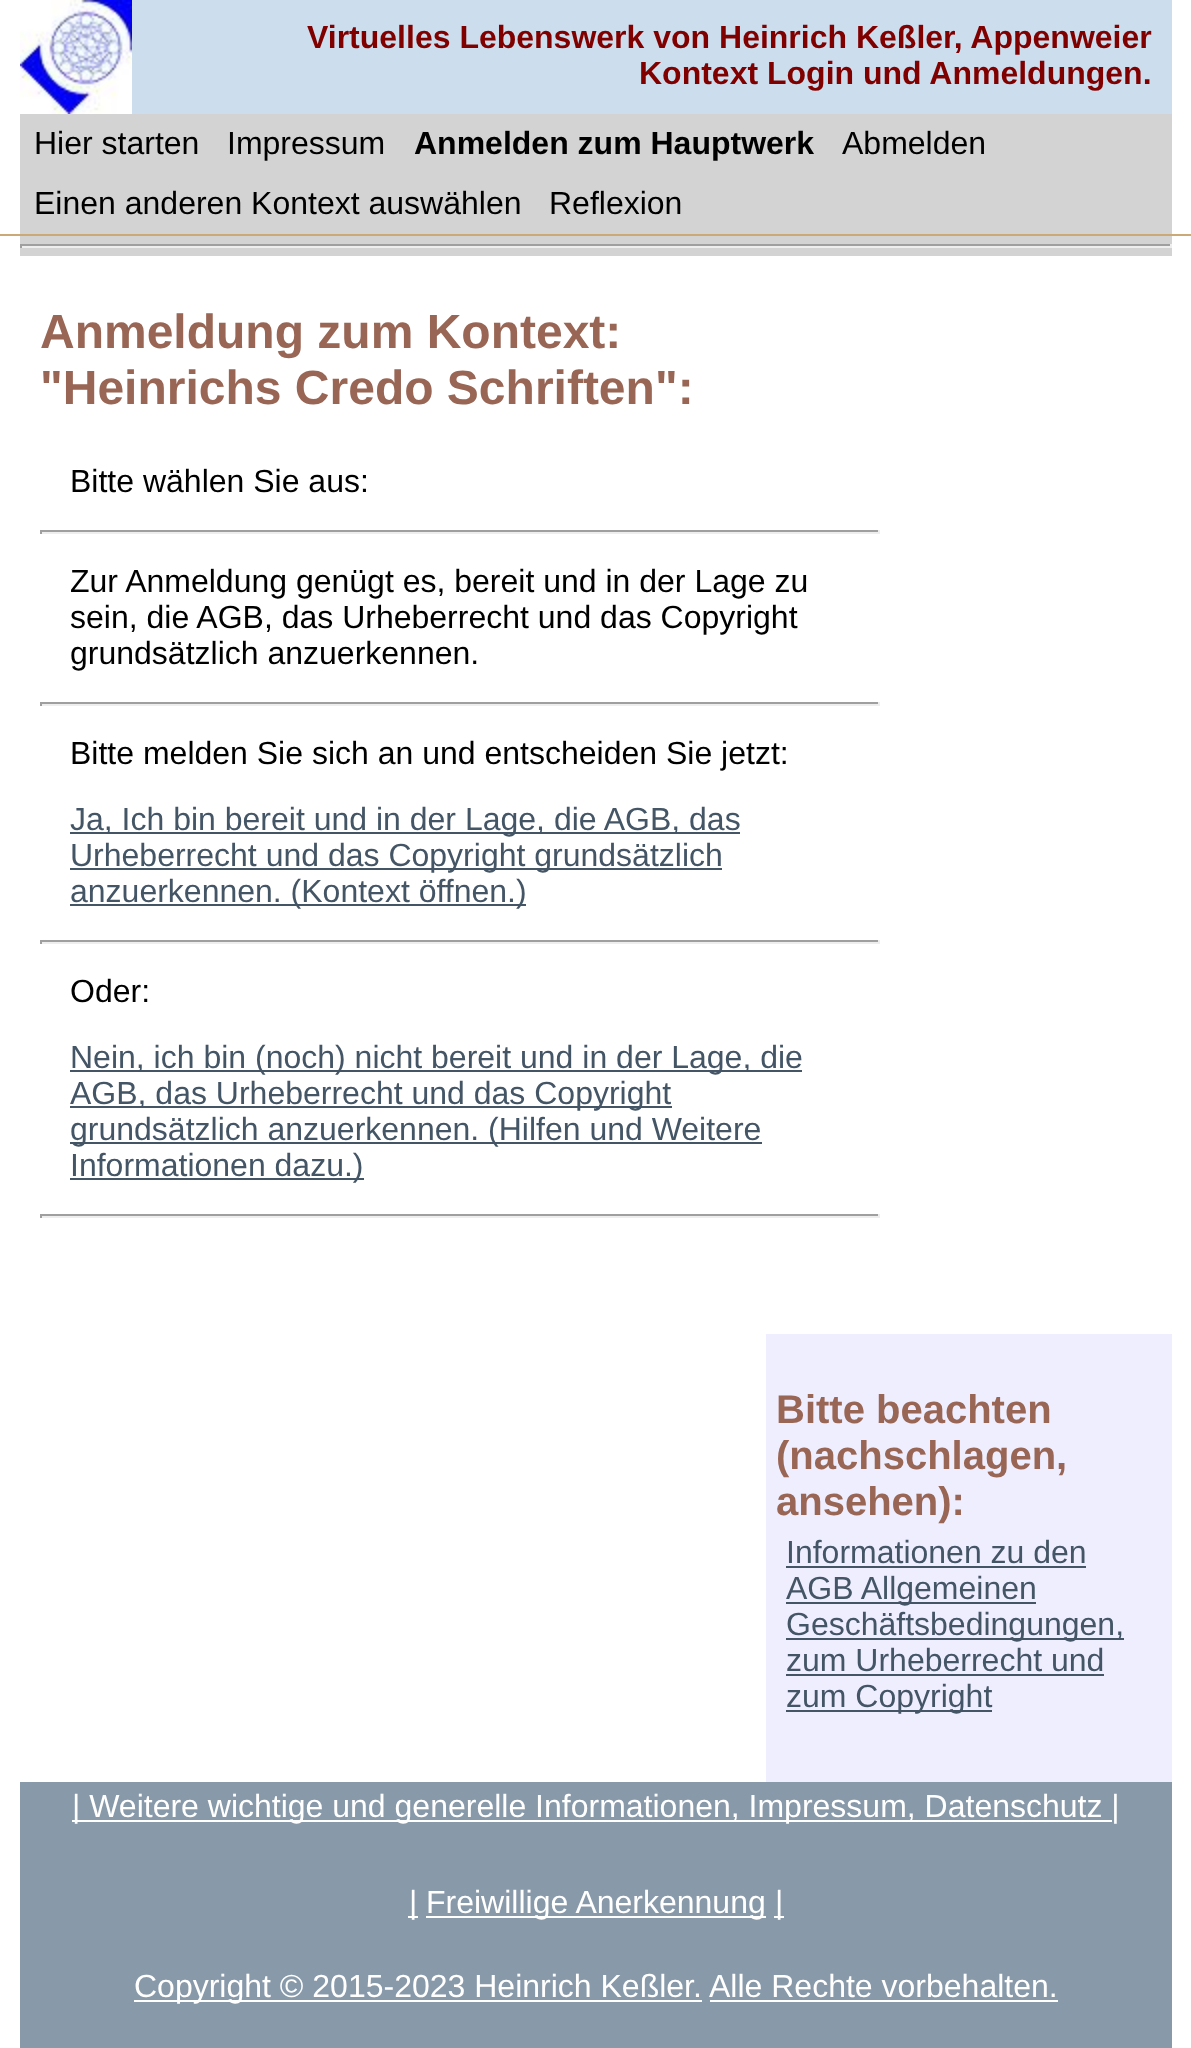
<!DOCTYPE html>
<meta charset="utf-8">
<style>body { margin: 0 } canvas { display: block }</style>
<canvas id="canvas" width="1191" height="2048"></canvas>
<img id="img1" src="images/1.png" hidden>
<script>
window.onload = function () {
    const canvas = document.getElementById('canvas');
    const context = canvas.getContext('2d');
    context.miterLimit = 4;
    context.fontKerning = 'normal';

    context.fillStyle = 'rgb(255, 255, 255)';
    context.fillRect(0, 0, 1191, 2048);
    context.fillStyle = 'rgb(204, 221, 238)';
    context.fillRect(132, 0, 1040, 114);
    context.drawImage(document.getElementById('img1'), 20, 0, 112, 114);
    context.fillStyle = 'rgb(211, 211, 211)';
    context.fillRect(20, 114, 1152, 120);
    context.fillStyle = 'rgb(204, 170, 119)';
    context.fillRect(0, 234, 1191, 2);
    context.fillStyle = 'rgb(211, 211, 211)';
    context.fillRect(20, 236, 1152, 20);
    context.fillStyle = 'rgb(159, 159, 159)';
    context.fillRect(20, 244, 1152, 2);
    context.fillStyle = 'rgb(238, 238, 238)';
    context.fillRect(1170, 244, 2, 4);
    context.fillRect(20, 246, 1152, 2);
    context.fillStyle = 'rgb(159, 159, 159)';
    context.fillRect(20, 244, 2, 4);
    context.fillRect(40, 530, 840, 2);
    context.fillStyle = 'rgb(238, 238, 238)';
    context.fillRect(878, 530, 2, 4);
    context.fillRect(40, 532, 840, 2);
    context.fillStyle = 'rgb(159, 159, 159)';
    context.fillRect(40, 530, 2, 4);
    context.fillRect(40, 702, 840, 2);
    context.fillStyle = 'rgb(238, 238, 238)';
    context.fillRect(878, 702, 2, 4);
    context.fillRect(40, 704, 840, 2);
    context.fillStyle = 'rgb(159, 159, 159)';
    context.fillRect(40, 702, 2, 4);
    context.fillStyle = 'rgb(68, 85, 102)';
    context.fillRect(70, 832, 670, 2);
    context.fillRect(70, 868, 652, 2);
    context.fillRect(70, 904, 456, 2);
    context.fillStyle = 'rgb(159, 159, 159)';
    context.fillRect(40, 940, 840, 2);
    context.fillStyle = 'rgb(238, 238, 238)';
    context.fillRect(878, 940, 2, 4);
    context.fillRect(40, 942, 840, 2);
    context.fillStyle = 'rgb(159, 159, 159)';
    context.fillRect(40, 940, 2, 4);
    context.fillStyle = 'rgb(68, 85, 102)';
    context.fillRect(70, 1070, 732, 2);
    context.fillRect(70, 1106, 602, 2);
    context.fillRect(70, 1142, 692, 2);
    context.fillRect(70, 1178, 294, 2);
    context.fillStyle = 'rgb(159, 159, 159)';
    context.fillRect(40, 1214, 840, 2);
    context.fillStyle = 'rgb(238, 238, 238)';
    context.fillRect(878, 1214, 2, 4);
    context.fillRect(40, 1216, 840, 2);
    context.fillStyle = 'rgb(159, 159, 159)';
    context.fillRect(40, 1214, 2, 4);
    context.fillStyle = 'rgb(238, 238, 255)';
    context.fillRect(766, 1334, 406, 448);
    context.fillStyle = 'rgb(68, 85, 102)';
    context.fillRect(786, 1566, 300, 2);
    context.fillRect(786, 1602, 250, 2);
    context.fillRect(786, 1638, 338, 2);
    context.fillRect(786, 1674, 318, 2);
    context.fillRect(786, 1710, 206, 2);
    context.fillStyle = 'rgb(136, 153, 170)';
    context.fillRect(20, 1782, 1152, 266);
    context.fillStyle = 'rgb(255, 255, 255)';
    context.fillRect(72, 1820, 1040, 2);
    context.fillRect(408, 1916, 10, 2);
    context.fillRect(426, 1916, 340, 2);
    context.fillRect(774, 1916, 10, 2);
    context.fillRect(134, 2000, 568, 2);
    context.fillRect(710, 2000, 348, 2);
    context.font = 'bold 32px Liberation Sans';
    context.fillStyle = 'rgb(128, 0, 0)';
    context.fillText('Virtuelles Lebenswerk von Heinrich Keßler, Appenweier', 307, 48);
    context.fillText('Kontext Login und Anmeldungen.', 639, 84);
    context.font = '32px Liberation Sans';
    context.fillStyle = 'rgb(0, 0, 0)';
    context.fillText('Hier starten', 34, 154);
    context.fillText('Impressum', 227, 154);
    context.font = 'bold 32px Liberation Sans';
    context.fillText('Anmelden zum Hauptwerk', 414, 154);
    context.font = '32px Liberation Sans';
    context.fillText('Abmelden', 842, 154);
    context.fillText('Einen anderen Kontext auswählen', 34, 214);
    context.fillText('Reflexion', 549, 214);
    context.font = 'bold 48px Liberation Sans';
    context.fillStyle = 'rgb(153, 102, 85)';
    context.fillText('Anmeldung zum Kontext:', 40, 348);
    context.fillText('"Heinrichs Credo Schriften":', 40, 404);
    context.font = '32px Liberation Sans';
    context.fillStyle = 'rgb(0, 0, 0)';
    context.fillText('Bitte wählen Sie aus:', 70, 492);
    context.fillText('Zur Anmeldung genügt es, bereit und in der Lage zu', 70, 592);
    context.fillText('sein, die AGB, das Urheberrecht und das Copyright', 70, 628);
    context.fillText('grundsätzlich anzuerkennen.', 70, 664);
    context.fillText('Bitte melden Sie sich an und entscheiden Sie jetzt:', 70, 764);
    context.fillStyle = 'rgb(68, 85, 102)';
    context.fillText('Ja, Ich bin bereit und in der Lage, die AGB, das', 70, 830);
    context.fillText('Urheberrecht und das Copyright grundsätzlich', 70, 866);
    context.fillText('anzuerkennen. (Kontext öffnen.)', 70, 902);
    context.fillStyle = 'rgb(0, 0, 0)';
    context.fillText('Oder:', 70, 1002);
    context.fillStyle = 'rgb(68, 85, 102)';
    context.fillText('Nein, ich bin (noch) nicht bereit und in der Lage, die', 70, 1068);
    context.fillText('AGB, das Urheberrecht und das Copyright', 70, 1104);
    context.fillText('grundsätzlich anzuerkennen. (Hilfen und Weitere', 70, 1140);
    context.fillText('Informationen dazu.)', 70, 1176);
    context.font = 'bold 40px Liberation Sans';
    context.fillStyle = 'rgb(153, 102, 85)';
    context.fillText('Bitte beachten', 776, 1423);
    context.fillText('(nachschlagen,', 776, 1469);
    context.fillText('ansehen):', 776, 1515);
    context.font = '32px Liberation Sans';
    context.fillStyle = 'rgb(68, 85, 102)';
    context.fillText('Informationen zu den', 786, 1563);
    context.fillText('AGB Allgemeinen', 786, 1599);
    context.fillText('Geschäftsbedingungen,', 786, 1635);
    context.fillText('zum Urheberrecht und', 786, 1671);
    context.fillText('zum Copyright', 786, 1707);
    context.fillStyle = 'rgb(255, 255, 255)';
    context.fillText('| Weitere wichtige und generelle Informationen, Impressum, Datenschutz |', 72, 1817);
    context.fillText('|', 409, 1913);
    context.fillText('Freiwillige Anerkennung', 426, 1913);
    context.fillText('|', 775, 1913);
    context.fillText('Copyright © 2015-2023 Heinrich Keßler.', 134, 1997);
    context.fillText('Alle Rechte vorbehalten.', 709, 1997);
};
</script>
